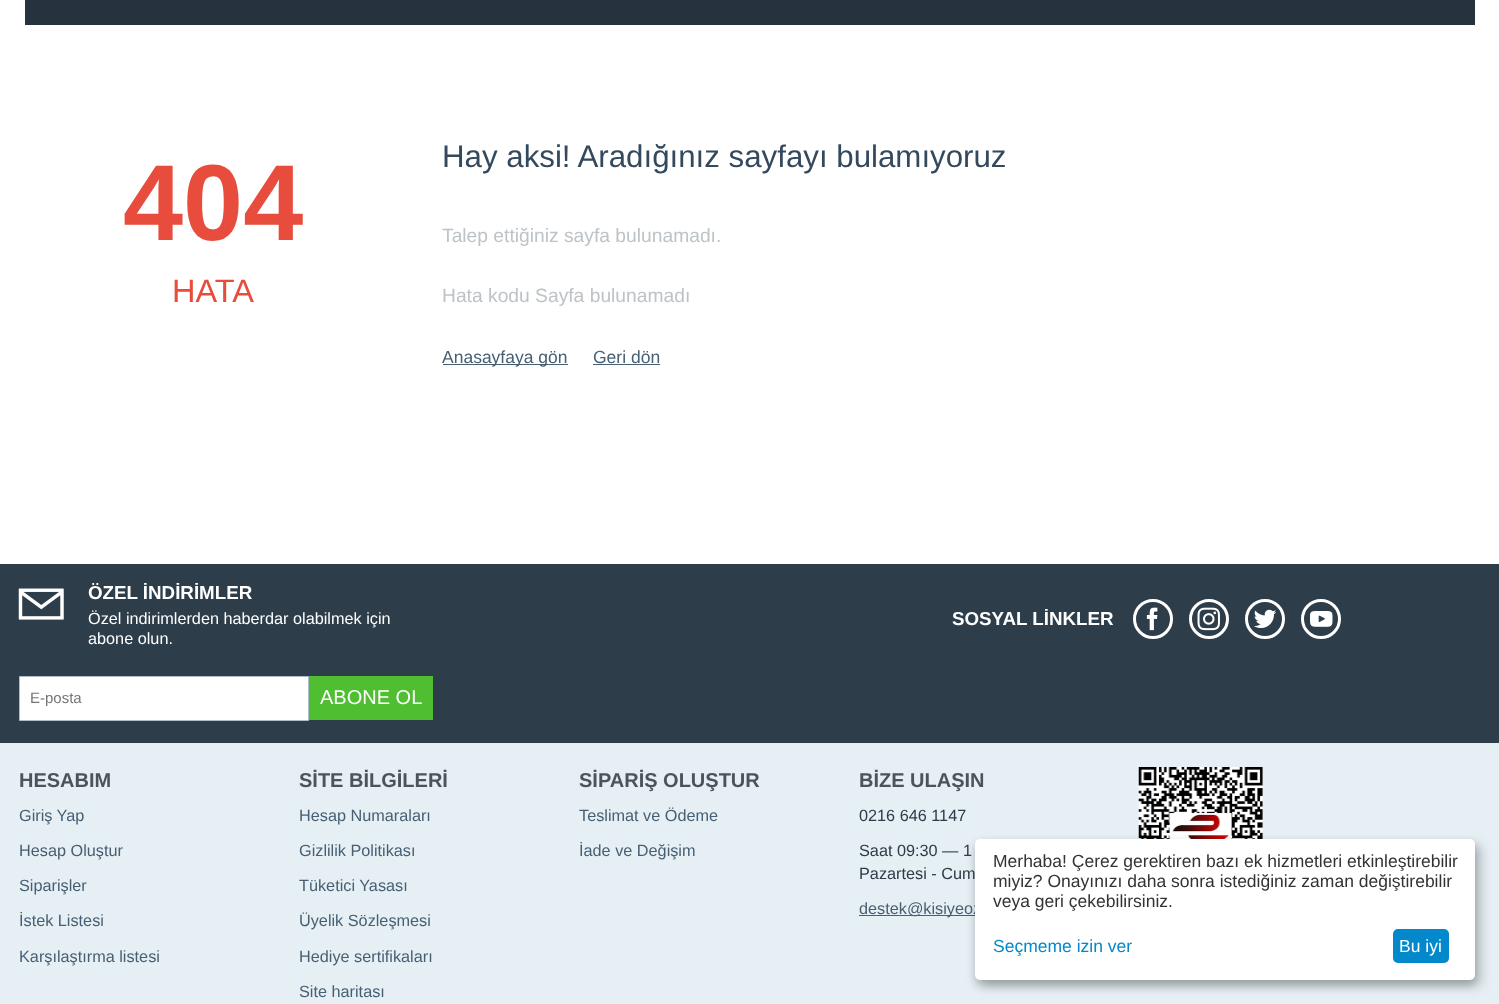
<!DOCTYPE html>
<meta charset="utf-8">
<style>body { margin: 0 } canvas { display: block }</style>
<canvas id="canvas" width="1499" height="1004"></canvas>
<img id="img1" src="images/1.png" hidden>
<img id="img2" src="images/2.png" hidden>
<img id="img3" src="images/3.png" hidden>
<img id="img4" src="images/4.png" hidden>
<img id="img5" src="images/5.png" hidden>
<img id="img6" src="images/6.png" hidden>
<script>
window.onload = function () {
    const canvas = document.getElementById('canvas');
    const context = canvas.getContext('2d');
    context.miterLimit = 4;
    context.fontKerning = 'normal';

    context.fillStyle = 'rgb(255, 255, 255)';
    context.fillRect(0, 0, 1499, 1004);
    context.fillStyle = 'rgb(38, 50, 62)';
    context.fillRect(25, 0, 1450, 25);
    context.fillStyle = 'rgb(70, 95, 115)';
    context.fillRect(443, 364, 125, 1);
    context.fillRect(593, 364, 67, 1);
    context.fillStyle = 'rgb(230, 239, 244)';
    context.fillRect(0, 743, 1499, 261);
    context.fillStyle = 'rgb(45, 61, 74)';
    context.fillRect(0, 564, 1499, 179);
    context.drawImage(document.getElementById('img1'), 18, 588, 46, 32);
    context.fillStyle = 'rgb(255, 255, 255)';
    context.beginPath();
    context.rect(19.5, 676.5, 289, 44);
    context.fill();
    context.strokeStyle = 'rgb(172, 189, 205)';
    context.stroke();
    context.fillStyle = 'rgb(79, 190, 49)';
    context.fillRect(309, 676, 124, 44);
    context.beginPath();
    context.arc(1153, 619, 18.5, 0, 2 * Math.PI);
    context.strokeStyle = 'rgb(255, 255, 255)';
    context.lineWidth = 3;
    context.stroke();
    context.drawImage(document.getElementById('img2'), 1146, 607, 12, 24);
    context.beginPath();
    context.arc(1209, 619, 18.5, 0, 2 * Math.PI);
    context.stroke();
    context.drawImage(document.getElementById('img3'), 1197, 607, 23, 24);
    context.beginPath();
    context.arc(1265, 619, 18.5, 0, 2 * Math.PI);
    context.stroke();
    context.drawImage(document.getElementById('img4'), 1254, 609, 22, 20);
    context.beginPath();
    context.arc(1321, 619, 18.5, 0, 2 * Math.PI);
    context.stroke();
    context.drawImage(document.getElementById('img5'), 1310, 611, 23, 16);
    context.fillStyle = 'rgb(70, 95, 115)';
    context.fillRect(859, 915, 116, 1);
    context.drawImage(document.getElementById('img6'), 1138, 767, 125, 72);
    context.fillStyle = 'rgba(0, 0, 0, 0.19)';
    context.filter = 'blur(6px)';
    context.beginPath();
    context.roundRect(981, 845, 500, 141, 5);
    context.fill();
    context.filter = 'none';
    context.fillStyle = 'rgba(0, 0, 0, 0.2)';
    context.filter = 'blur(4px)';
    context.beginPath();
    context.roundRect(975, 844, 500, 141, 5);
    context.fill();
    context.filter = 'none';
    context.font = 'bold 108px Liberation Sans';
    context.fillStyle = 'rgb(231, 76, 60)';
    context.fillText('404', 123, 240);
    context.font = '32.5px Liberation Sans';
    context.fillText('HATA', 172, 302);
    context.font = '31.25px Liberation Sans';
    context.fillStyle = 'rgb(52, 73, 94)';
    context.fillText('Hay aksi! Aradığınız sayfayı bulamıyoruz', 442, 167);
    context.font = '19.25px Liberation Sans';
    context.fillStyle = 'rgb(189, 195, 199)';
    context.fillText('Talep ettiğiniz sayfa bulunamadı.', 442, 242);
    context.fillText('Hata kodu Sayfa bulunamadı', 442, 302);
    context.font = '17.5px Liberation Sans';
    context.fillStyle = 'rgb(70, 95, 115)';
    context.fillText('Anasayfaya gön', 442, 363);
    context.fillText('Geri dön', 593, 363);
    context.font = 'bold 18.75px Liberation Sans';
    context.fillStyle = 'rgb(255, 255, 255)';
    context.fillText('ÖZEL İNDİRİMLER', 88, 599);
    context.font = '16.25px Liberation Sans';
    context.fillText('Özel indirimlerden haberdar olabilmek için', 88, 624);
    context.fillText('abone olun.', 88, 644);
    context.font = '15px Liberation Sans';
    context.fillStyle = 'rgb(117, 117, 117)';
    context.fillText('E-posta', 30, 703);
    context.font = '20px Liberation Sans';
    context.fillStyle = 'rgb(255, 255, 255)';
    context.fillText('ABONE OL', 320, 704);
    context.font = 'bold 18.75px Liberation Sans';
    context.fillText('SOSYAL LİNKLER', 952, 625);
    context.font = 'bold 20px Liberation Sans';
    context.fillStyle = 'rgb(76, 83, 93)';
    context.fillText('HESABIM', 19, 787);
    context.font = '16.25px Liberation Sans';
    context.fillStyle = 'rgb(70, 95, 115)';
    context.fillText('Giriş Yap', 19, 821);
    context.fillText('Hesap Oluştur', 19, 856);
    context.fillText('Siparişler', 19, 891);
    context.fillText('İstek Listesi', 19, 926);
    context.fillText('Karşılaştırma listesi', 19, 962);
    context.font = 'bold 20px Liberation Sans';
    context.fillStyle = 'rgb(76, 83, 93)';
    context.fillText('SİTE BİLGİLERİ', 299, 787);
    context.font = '16.25px Liberation Sans';
    context.fillStyle = 'rgb(70, 95, 115)';
    context.fillText('Hesap Numaraları', 299, 821);
    context.fillText('Gizlilik Politikası', 299, 856);
    context.fillText('Tüketici Yasası', 299, 891);
    context.fillText('Üyelik Sözleşmesi', 299, 926);
    context.fillText('Hediye sertifikaları', 299, 962);
    context.fillText('Site haritası', 299, 997);
    context.font = 'bold 20px Liberation Sans';
    context.fillStyle = 'rgb(76, 83, 93)';
    context.fillText('SİPARİŞ OLUŞTUR', 579, 787);
    context.font = '16.25px Liberation Sans';
    context.fillStyle = 'rgb(70, 95, 115)';
    context.fillText('Teslimat ve Ödeme', 579, 821);
    context.fillText('İade ve Değişim', 579, 856);
    context.font = 'bold 20px Liberation Sans';
    context.fillStyle = 'rgb(76, 83, 93)';
    context.fillText('BİZE ULAŞIN', 859, 787);
    context.font = '16.25px Liberation Sans';
    context.fillStyle = 'rgb(46, 58, 71)';
    context.fillText('0216 646 1147', 859, 821);
    context.fillText('Saat 09:30 — 1', 859, 856);
    context.fillText('Pazartesi - Cum', 859, 879);
    context.fillStyle = 'rgb(70, 95, 115)';
    context.fillText('destek@kisiyeoz', 859, 914);
    context.fillStyle = 'rgb(255, 255, 255)';
    context.beginPath();
    context.roundRect(975, 839, 500, 141, 5);
    context.fill();
    context.font = '17.5px Liberation Sans';
    context.fillStyle = 'rgb(51, 51, 51)';
    context.fillText('Merhaba! Çerez gerektiren bazı ek hizmetleri etkinleştirebilir', 993, 867);
    context.fillText('miyiz? Onayınızı daha sonra istediğiniz zaman değiştirebilir', 993, 887);
    context.fillText('veya geri çekebilirsiniz.', 993, 907);
    context.fillStyle = 'rgb(3, 136, 204)';
    context.fillText('Seçmeme izin ver', 993, 952);
    context.beginPath();
    context.roundRect(1393, 929, 56, 34, 5);
    context.fill();
    context.fillStyle = 'rgb(255, 255, 255)';
    context.fillText('Bu iyi', 1399, 952);
};
</script>
